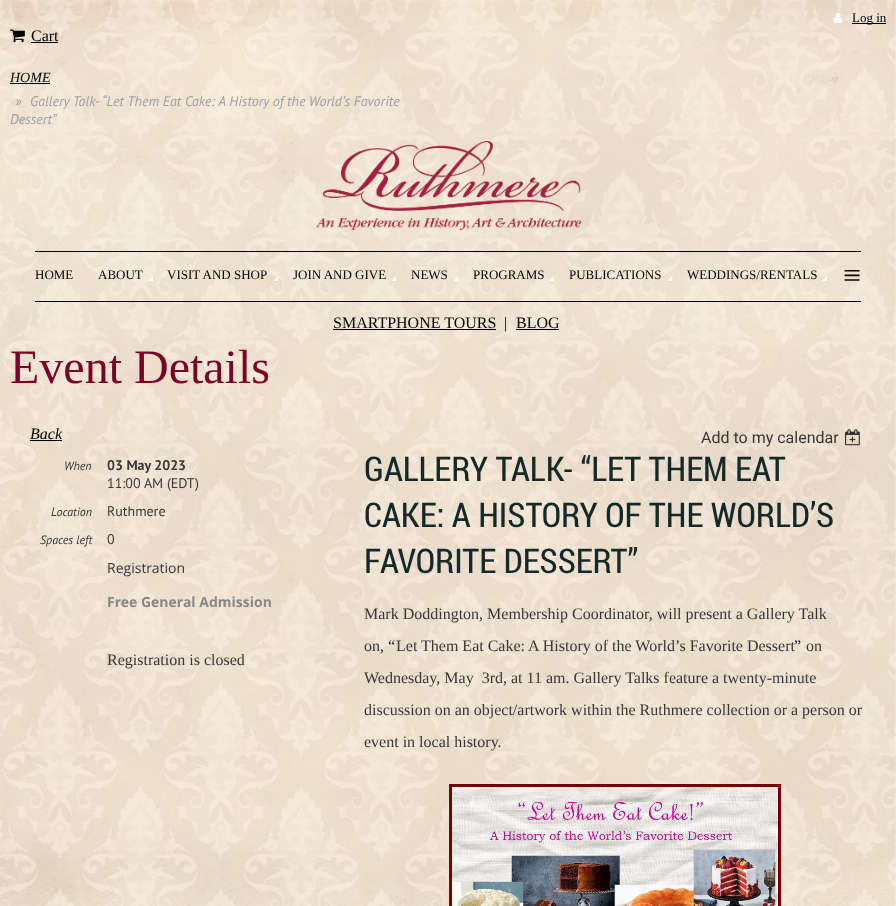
<!DOCTYPE html>
<meta charset="utf-8">
<style>body { margin: 0 } canvas { display: block }</style>
<canvas id="canvas" width="896" height="906"></canvas>
<img id="img1" src="images/1.png" hidden>
<img id="img2" src="images/2.png" hidden>
<img id="img3" src="images/3.png" hidden>
<img id="img4" src="images/4.png" hidden>
<img id="img5" src="images/5.png" hidden>
<img id="img6" src="images/6.png" hidden>
<script>
window.onload = function () {
    const canvas = document.getElementById('canvas');
    const context = canvas.getContext('2d');
    context.miterLimit = 4;
    context.fontKerning = 'normal';

    context.fillStyle = 'rgb(255, 255, 255)';
    context.fillRect(0, 0, 896, 906);
    context.drawImage(document.getElementById('img1'), 0, 0, 896, 906);
    context.drawImage(document.getElementById('img2'), 833, 13, 10, 10);
    context.fillStyle = 'rgb(0, 0, 0)';
    context.fillRect(852, 23, 34, 1);
    context.drawImage(document.getElementById('img3'), 10, 29, 15, 14);
    context.fillRect(31, 42, 27, 1);
    context.fillRect(10, 83, 40, 1);
    context.drawImage(document.getElementById('img4'), 316, 141, 265, 89);
    context.fillRect(35, 251, 826, 1);
    context.fillRect(35, 301, 826, 1);
    context.fillStyle = 'rgb(255, 255, 255)';
    context.beginPath();
    context.moveTo(153, 281);
    context.lineTo(148, 281);
    context.lineTo(153, 276);
    context.closePath();
    context.fill();
    context.beginPath();
    context.moveTo(278, 281);
    context.lineTo(273, 281);
    context.lineTo(278, 276);
    context.closePath();
    context.fill();
    context.beginPath();
    context.moveTo(396, 281);
    context.lineTo(391, 281);
    context.lineTo(396, 276);
    context.closePath();
    context.fill();
    context.beginPath();
    context.moveTo(458, 281);
    context.lineTo(453, 281);
    context.lineTo(458, 276);
    context.closePath();
    context.fill();
    context.beginPath();
    context.moveTo(554, 281);
    context.lineTo(549, 281);
    context.lineTo(554, 276);
    context.closePath();
    context.fill();
    context.beginPath();
    context.moveTo(672, 281);
    context.lineTo(667, 281);
    context.lineTo(672, 276);
    context.closePath();
    context.fill();
    context.beginPath();
    context.moveTo(827, 281);
    context.lineTo(822, 281);
    context.lineTo(827, 276);
    context.closePath();
    context.fill();
    context.fillStyle = 'rgb(0, 0, 0)';
    context.fillRect(333, 329, 163, 1);
    context.fillRect(516, 329, 43, 1);
    context.fillRect(30, 440, 32, 1);
    context.drawImage(document.getElementById('img5'), 845, 429, 15, 17);
    context.strokeStyle = 'rgb(121, 0, 0)';
    context.lineWidth = 3;
    context.strokeRect(450.5, 785.5, 329, 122);
    context.drawImage(document.getElementById('img6'), 452, 787, 326, 119);
    context.font = '13px Liberation Serif';
    context.fillText('Log in', 852, 22);
    context.font = '16px Liberation Serif';
    context.fillText('Cart', 31, 41);
    context.font = 'italic 14px Liberation Serif';
    context.fillText('HOME', 10, 82);
    context.font = 'italic 14px PT Sans';
    context.fillStyle = 'rgb(157, 161, 163)';
    context.fillText('»', 15, 106);
    context.fillText('Gallery Talk-', 30, 106);
    context.fillText('“Let Them Eat Cake: A History of the World’s Favorite', 102, 106);
    context.fillText('Dessert”', 10, 124);
    context.font = '13px Liberation Serif';
    context.fillStyle = 'rgb(0, 0, 0)';
    context.fillText('HOME', 35, 279);
    context.fillText('ABOUT', 98, 279);
    context.fillText('VISIT AND SHOP', 167, 279);
    context.fillText('JOIN AND GIVE', 293, 279);
    context.fillText('NEWS', 411, 279);
    context.fillText('PROGRAMS', 473, 279);
    context.fillText('PUBLICATIONS', 569, 279);
    context.fillText('WEDDINGS/RENTALS', 687, 279);
    context.font = '32px Liberation Serif';
    context.fillText('≡', 843, 286);
    context.font = '16px Liberation Serif';
    context.fillText('SMARTPHONE TOURS', 333, 328);
    context.fillText('|', 504, 328);
    context.fillText('BLOG', 516, 328);
    context.font = '48px Liberation Serif';
    context.fillStyle = 'rgb(122, 0, 38)';
    context.fillText('Event Details', 10, 383);
    context.font = 'italic 16px Liberation Serif';
    context.fillStyle = 'rgb(0, 0, 0)';
    context.fillText('Back', 30, 439);
    context.font = '16px Roboto';
    context.fillStyle = 'rgb(55, 55, 55)';
    context.fillText('Add to my calendar', 701, 443);
    context.font = '34px Roboto Condensed';
    context.fillStyle = 'rgb(21, 41, 40)';
    context.fillText('GALLERY TALK- “LET THEM EAT', 364, 481);
    context.fillText('CAKE: A HISTORY OF THE WORLD’S', 364, 527);
    context.fillText('FAVORITE DESSERT”', 364, 573);
    context.font = 'italic 12px PT Sans';
    context.fillStyle = 'rgb(55, 55, 55)';
    context.fillText('When', 64, 470);
    context.font = 'bold 14px PT Sans';
    context.fillText('03 May 2023', 107, 470);
    context.font = '14px PT Sans';
    context.fillText('11:00 AM (EDT)', 107, 488);
    context.font = 'italic 12px PT Sans';
    context.fillText('Location', 51, 516);
    context.font = '14px PT Sans';
    context.fillText('Ruthmere', 107, 516);
    context.font = 'italic 12px PT Sans';
    context.fillText('Spaces left', 40, 544);
    context.font = '14px PT Sans';
    context.fillText('0', 107, 544);
    context.font = '14px Open Sans';
    context.fillText('Registration', 107, 573);
    context.font = 'bold 14px Open Sans';
    context.fillStyle = 'rgb(136, 136, 136)';
    context.fillText('Free General Admission', 107, 607);
    context.font = '16px Liberation Serif';
    context.fillStyle = 'rgb(55, 55, 55)';
    context.fillText('Registration is closed', 107, 665);
    context.fillText('Mark Doddington, Membership Coordinator, will present a Gallery Talk', 364, 619);
    context.fillStyle = 'rgb(34, 34, 34)';
    context.fillText('“', 388, 651);
    context.fillStyle = 'rgb(55, 55, 55)';
    context.fillText('Let Them Eat Cake: A History of the World’s Favorite Dessert', 396, 651);
    context.fillStyle = 'rgb(34, 34, 34)';
    context.fillText('”', 794, 651);
    context.fillStyle = 'rgb(55, 55, 55)';
    context.fillText('on,', 364, 651);
    context.fillText('on', 806, 651);
    context.fillText('Wednesday, May  3rd, at 11 am. Gallery Talks feature a twenty-minute', 364, 683);
    context.fillText('discussion on an object/artwork within the Ruthmere collection or a person or', 364, 715);
    context.fillText('event in local history.', 364, 747);
};
</script>
